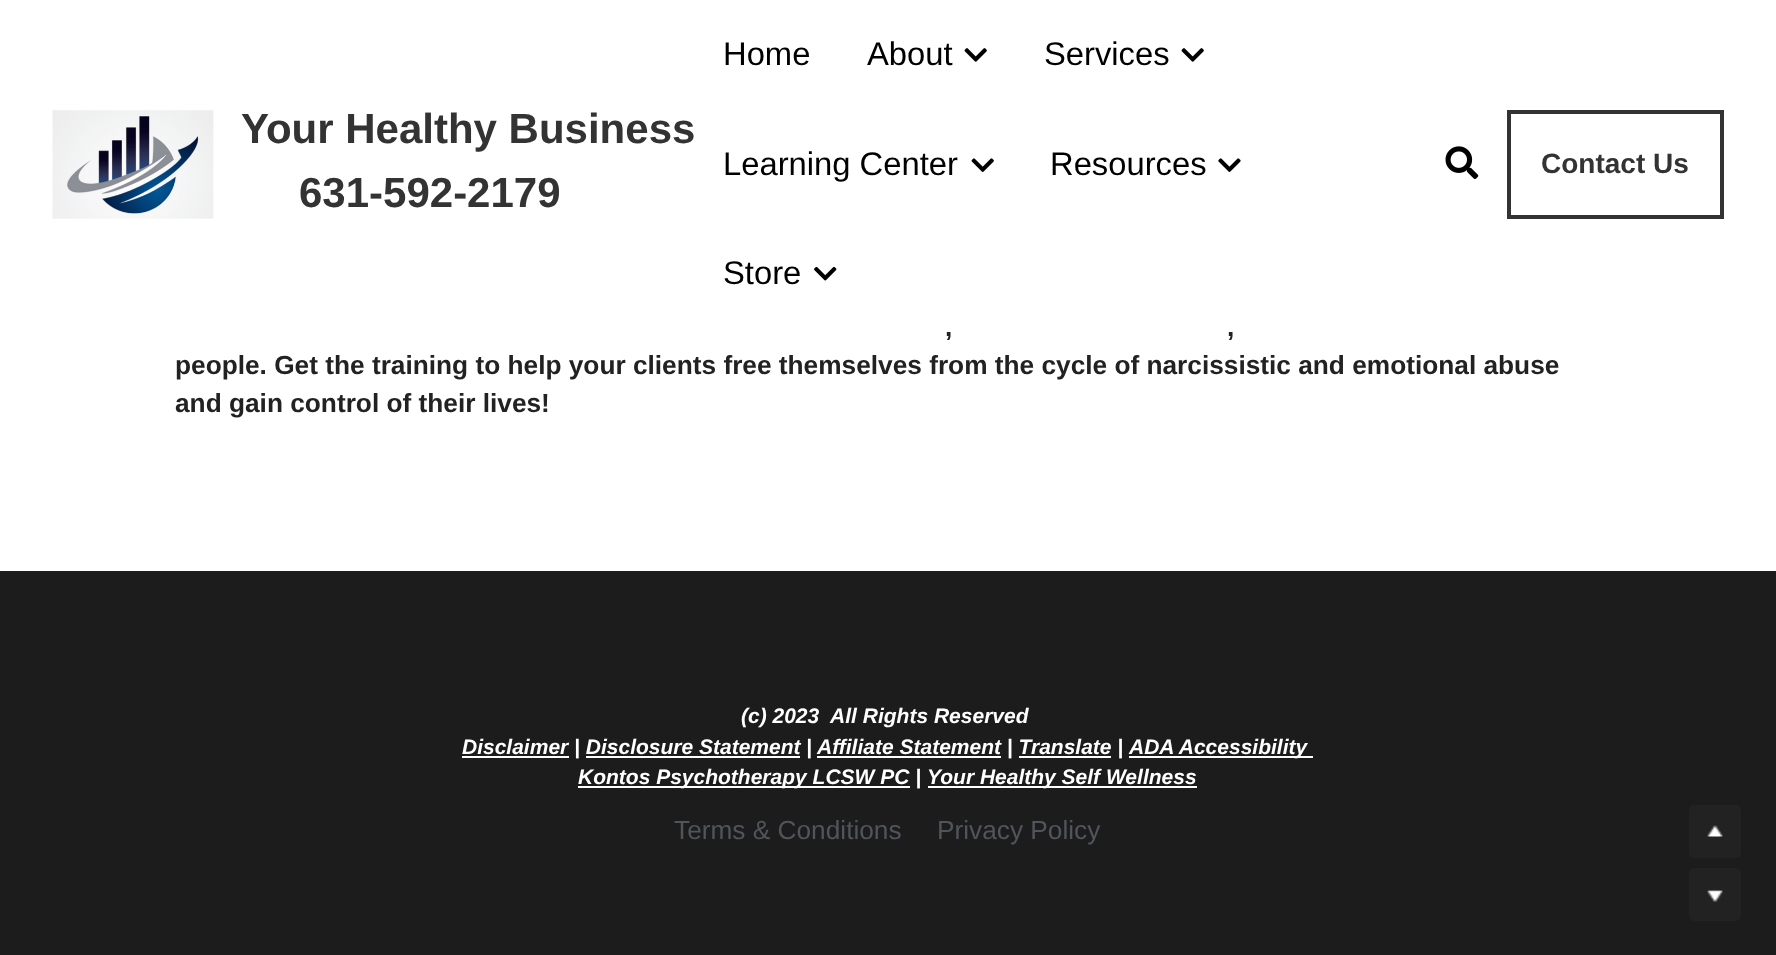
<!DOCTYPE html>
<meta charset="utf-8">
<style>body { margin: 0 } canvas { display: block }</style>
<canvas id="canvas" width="1776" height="955"></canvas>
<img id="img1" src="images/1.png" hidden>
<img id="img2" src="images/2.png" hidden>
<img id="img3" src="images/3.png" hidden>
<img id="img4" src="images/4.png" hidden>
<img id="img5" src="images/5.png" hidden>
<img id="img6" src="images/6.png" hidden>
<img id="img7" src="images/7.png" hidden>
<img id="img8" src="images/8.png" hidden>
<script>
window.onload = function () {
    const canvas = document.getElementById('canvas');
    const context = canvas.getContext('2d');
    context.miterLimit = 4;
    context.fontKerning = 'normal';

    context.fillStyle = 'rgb(255, 255, 255)';
    context.fillRect(0, 0, 1776, 955);
    context.drawImage(document.getElementById('img1'), 52, 110, 162, 109);
    context.drawImage(document.getElementById('img2'), 964, 48, 23, 14);
    context.drawImage(document.getElementById('img2'), 1181, 48, 23, 14);
    context.drawImage(document.getElementById('img3'), 971, 158, 23, 14);
    context.drawImage(document.getElementById('img4'), 1218, 158, 23, 14);
    context.drawImage(document.getElementById('img5'), 814, 266, 23, 15);
    context.drawImage(document.getElementById('img6'), 1445, 146, 34, 34);
    context.strokeStyle = 'rgb(51, 51, 51)';
    context.lineWidth = 4;
    context.strokeRect(1509, 112, 213, 105);
    context.fillStyle = 'rgb(28, 28, 28)';
    context.fillRect(0, 571, 1776, 384);
    context.fillStyle = 'rgb(255, 255, 255)';
    context.fillRect(462, 756, 107, 2);
    context.fillRect(817, 756, 184, 2);
    context.fillRect(1129, 756, 184, 2);
    context.fillRect(586, 756, 214, 2);
    context.fillRect(1019, 756, 92, 2);
    context.fillRect(578, 786, 332, 2);
    context.fillRect(928, 786, 269, 2);
    context.fillStyle = 'rgb(34, 34, 34)';
    context.beginPath();
    context.roundRect(1689, 805, 52, 53, 5);
    context.fill();
    context.drawImage(document.getElementById('img7'), 1707, 825, 16, 12);
    context.beginPath();
    context.roundRect(1689, 868, 52, 53, 5);
    context.fill();
    context.drawImage(document.getElementById('img8'), 1707, 890, 16, 12);
    context.font = 'bold 42px Liberation Sans';
    context.fillStyle = 'rgb(51, 51, 51)';
    context.fillText('Your Healthy Business', 241, 143);
    context.fillText('631-592-2179', 299, 207);
    context.font = '32.75px Liberation Sans';
    context.fillStyle = 'rgb(0, 0, 0)';
    context.fillText('Home', 723, 65);
    context.fillText('About', 867, 65);
    context.fillText('Services', 1044, 65);
    context.fillText('Learning Center', 723, 175);
    context.fillText('Resources', 1050, 175);
    context.fillText('Store', 723, 284);
    context.font = 'bold 28px Liberation Sans';
    context.fillStyle = 'rgb(51, 51, 51)';
    context.fillText('Contact Us', 1541, 173);
    context.font = 'bold 26.25px Liberation Sans';
    context.fillStyle = 'rgb(34, 34, 34)';
    context.fillText(',', 945, 336);
    context.fillText(',', 1227, 336);
    context.fillText('people. Get the training to help your clients free themselves from the cycle of narcissistic and emotional abuse', 175, 374);
    context.fillText('and gain control of their lives!', 175, 412);
    context.font = 'italic bold 21px Liberation Sans';
    context.fillStyle = 'rgb(255, 255, 255)';
    context.fillText('(c) 2023  All Rights Reserved', 741, 723);
    context.fillText('Disclaimer | Disclosure Statement', 462, 754);
    context.fillText('|', 806, 754);
    context.fillText('Affiliate Statement | Translate |', 817, 754);
    context.fillText('ADA Accessibility', 1129, 754);
    context.fillText('Kontos Psychotherapy LCSW PC |', 578, 784);
    context.fillText('Your Healthy Self Wellness', 927, 784);
    context.font = '26.25px Liberation Sans';
    context.fillStyle = 'rgb(80, 85, 92)';
    context.fillText('Terms & Conditions', 674, 839);
    context.fillText('Privacy Policy', 937, 839);
};
</script>
